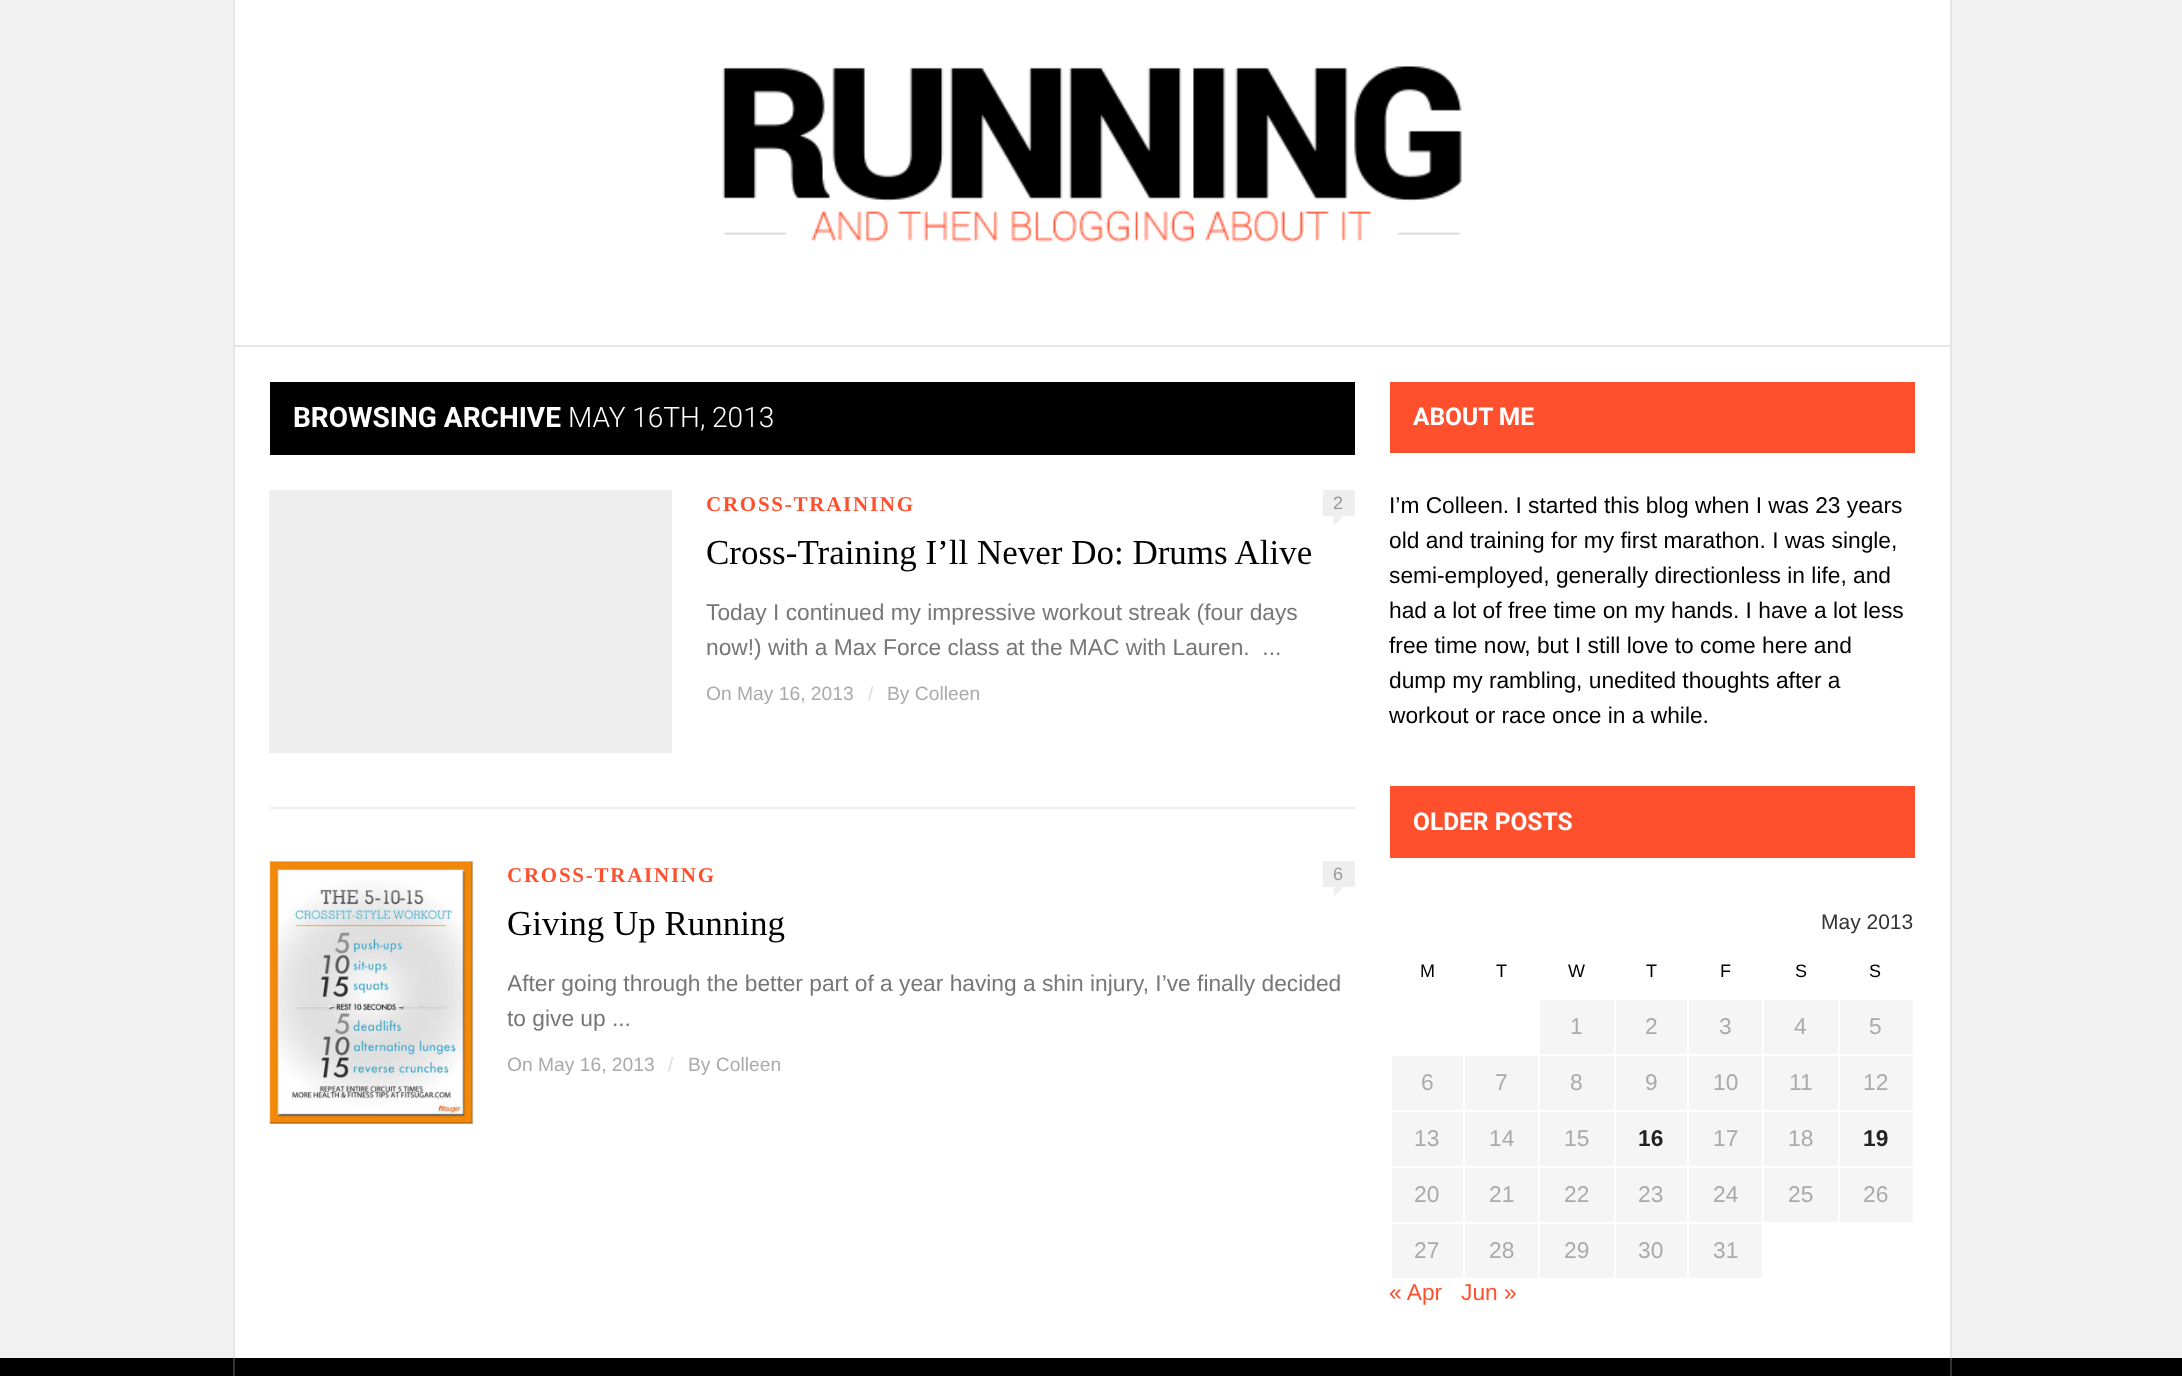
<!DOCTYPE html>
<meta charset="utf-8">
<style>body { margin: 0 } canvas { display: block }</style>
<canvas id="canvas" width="2182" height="1376"></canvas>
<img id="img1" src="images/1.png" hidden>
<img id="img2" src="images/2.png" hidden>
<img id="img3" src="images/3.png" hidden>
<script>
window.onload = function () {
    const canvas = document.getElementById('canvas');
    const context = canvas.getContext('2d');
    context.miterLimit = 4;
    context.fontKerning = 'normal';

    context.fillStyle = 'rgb(242, 242, 242)';
    context.fillRect(0, 0, 2182, 1376);
    context.fillStyle = 'rgb(255, 255, 255)';
    context.fillRect(235, 0, 1715, 1358);
    context.fillStyle = 'rgb(229, 229, 229)';
    context.fillRect(1950, 0, 2, 1358);
    context.fillRect(233, 0, 2, 1358);
    context.fillRect(235, 345, 1715, 2);
    context.drawImage(document.getElementById('img1'), 722, 66, 740, 176);
    context.fillStyle = 'rgb(0, 0, 0)';
    context.fillRect(270, 382, 1085, 73);
    context.fillStyle = 'rgb(238, 238, 238)';
    context.fillRect(270, 807, 1085, 2);
    context.fillRect(269, 490, 403, 263);
    context.drawImage(document.getElementById('img2'), 1333, 516, 9, 9);
    context.fillRect(1323, 490, 32, 26);
    context.drawImage(document.getElementById('img3'), 269, 861, 204, 263);
    context.drawImage(document.getElementById('img2'), 1333, 887, 9, 9);
    context.fillRect(1323, 861, 32, 26);
    context.fillStyle = 'rgb(255, 80, 46)';
    context.fillRect(1390, 382, 525, 71);
    context.fillRect(1390, 786, 525, 72);
    context.fillStyle = 'rgb(245, 245, 245)';
    context.fillRect(1540, 1000, 74, 54);
    context.fillRect(1616, 1000, 71, 54);
    context.fillRect(1689, 1000, 73, 54);
    context.fillRect(1764, 1000, 74, 54);
    context.fillRect(1840, 1000, 73, 54);
    context.fillRect(1392, 1056, 71, 54);
    context.fillRect(1465, 1056, 73, 54);
    context.fillRect(1540, 1056, 74, 54);
    context.fillRect(1616, 1056, 71, 54);
    context.fillRect(1689, 1056, 73, 54);
    context.fillRect(1764, 1056, 74, 54);
    context.fillRect(1840, 1056, 73, 54);
    context.fillRect(1392, 1112, 71, 54);
    context.fillRect(1465, 1112, 73, 54);
    context.fillRect(1540, 1112, 74, 54);
    context.fillRect(1616, 1112, 71, 54);
    context.fillRect(1689, 1112, 73, 54);
    context.fillRect(1764, 1112, 74, 54);
    context.fillRect(1840, 1112, 73, 54);
    context.fillRect(1392, 1168, 71, 54);
    context.fillRect(1465, 1168, 73, 54);
    context.fillRect(1540, 1168, 74, 54);
    context.fillRect(1616, 1168, 71, 54);
    context.fillRect(1689, 1168, 73, 54);
    context.fillRect(1764, 1168, 74, 54);
    context.fillRect(1840, 1168, 73, 54);
    context.fillRect(1392, 1224, 71, 54);
    context.fillRect(1465, 1224, 73, 54);
    context.fillRect(1540, 1224, 74, 54);
    context.fillRect(1616, 1224, 71, 54);
    context.fillRect(1689, 1224, 73, 54);
    context.fillStyle = 'rgb(0, 0, 0)';
    context.fillRect(0, 1358, 2182, 18);
    context.fillStyle = 'rgb(51, 51, 51)';
    context.fillRect(1950, 1358, 2, 18);
    context.fillRect(233, 1358, 2, 18);
    context.font = 'bold 28px Roboto';
    context.fillStyle = 'rgb(255, 255, 255)';
    context.fillText('BROWSING ARCHIVE', 293, 427);
    context.font = '300 28px Roboto';
    context.fillText('MAY 16TH, 2013', 568, 427);
    context.letterSpacing = '1.75px';
    context.font = 'bold 21px Liberation Serif';
    context.fillStyle = 'rgb(255, 80, 46)';
    context.fillText('CROSS-TRAINING', 706, 511);
    context.letterSpacing = '0px';
    context.font = '18px Liberation Sans';
    context.fillStyle = 'rgb(153, 153, 153)';
    context.fillText('2', 1333, 509);
    context.font = '35px Liberation Serif';
    context.fillStyle = 'rgb(0, 0, 0)';
    context.fillText('Cross-Training I’ll Never Do: Drums Alive', 706, 564);
    context.font = '22.75px Liberation Sans';
    context.fillStyle = 'rgb(119, 119, 119)';
    context.fillText('Today I continued my impressive workout streak (four days', 706, 620);
    context.fillText('now!) with a Max Force class at the MAC with Lauren.  ...', 706, 655);
    context.font = '19.25px Liberation Sans';
    context.fillStyle = 'rgb(170, 170, 170)';
    context.fillText('On May 16, 2013', 706, 700);
    context.fillStyle = 'rgb(221, 221, 221)';
    context.fillText('/', 868, 700);
    context.fillStyle = 'rgb(170, 170, 170)';
    context.fillText('By Colleen', 887, 700);
    context.save();
    context.beginPath();
    context.rect(508, 861, 847, 215);
    context.clip();
    context.letterSpacing = '1.75px';
    context.font = 'bold 21px Liberation Serif';
    context.fillStyle = 'rgb(255, 80, 46)';
    context.fillText('CROSS-TRAINING', 507, 882);
    context.restore();
    context.font = '18px Liberation Sans';
    context.fillStyle = 'rgb(153, 153, 153)';
    context.fillText('6', 1333, 880);
    context.font = '35px Liberation Serif';
    context.fillStyle = 'rgb(0, 0, 0)';
    context.fillText('Giving Up Running', 507, 935);
    context.save();
    context.beginPath();
    context.rect(508, 861, 847, 215);
    context.clip();
    context.font = '22.75px Liberation Sans';
    context.fillStyle = 'rgb(119, 119, 119)';
    context.fillText('After going through the better part of a year having a shin injury, I’ve finally decided', 507, 991);
    context.restore();
    context.font = '22.75px Liberation Sans';
    context.fillStyle = 'rgb(119, 119, 119)';
    context.fillText('to give up ...', 507, 1026);
    context.save();
    context.beginPath();
    context.rect(508, 861, 847, 215);
    context.clip();
    context.font = '19.25px Liberation Sans';
    context.fillStyle = 'rgb(170, 170, 170)';
    context.fillText('On May 16, 2013', 507, 1071);
    context.restore();
    context.font = '19.25px Liberation Sans';
    context.fillStyle = 'rgb(221, 221, 221)';
    context.fillText('/', 668, 1071);
    context.fillStyle = 'rgb(170, 170, 170)';
    context.fillText('By Colleen', 688, 1071);
    context.font = 'bold 24.5px Roboto';
    context.fillStyle = 'rgb(255, 255, 255)';
    context.fillText('ABOUT ME', 1413, 425);
    context.font = '22.75px Liberation Sans';
    context.fillStyle = 'rgb(0, 0, 0)';
    context.fillText('I’m Colleen. I started this blog when I was 23 years', 1389, 513);
    context.fillText('old and training for my first marathon. I was single,', 1389, 548);
    context.fillText('semi-employed, generally directionless in life, and', 1389, 583);
    context.fillText('had a lot of free time on my hands. I have a lot less', 1389, 618);
    context.fillText('free time now, but I still love to come here and', 1389, 653);
    context.fillText('dump my rambling, unedited thoughts after a', 1389, 688);
    context.fillText('workout or race once in a while.', 1389, 723);
    context.font = 'bold 24.5px Roboto';
    context.fillStyle = 'rgb(255, 255, 255)';
    context.fillText('OLDER POSTS', 1413, 830);
    context.font = '21px Liberation Sans';
    context.fillStyle = 'rgb(51, 51, 51)';
    context.fillText('May 2013', 1821, 929);
    context.font = '18px Liberation Sans';
    context.fillStyle = 'rgb(0, 0, 0)';
    context.fillText('M', 1420, 977);
    context.fillText('T', 1496, 977);
    context.fillText('W', 1568, 977);
    context.fillText('T', 1646, 977);
    context.fillText('F', 1720, 977);
    context.fillText('S', 1795, 977);
    context.fillText('S', 1869, 977);
    context.font = '22.75px Liberation Sans';
    context.fillStyle = 'rgb(170, 170, 170)';
    context.fillText('1', 1570, 1034);
    context.fillText('2', 1645, 1034);
    context.fillText('3', 1719, 1034);
    context.fillText('4', 1794, 1034);
    context.fillText('5', 1869, 1034);
    context.fillText('6', 1421, 1090);
    context.fillText('7', 1495, 1090);
    context.fillText('8', 1570, 1090);
    context.fillText('9', 1645, 1090);
    context.fillText('10', 1713, 1090);
    context.fillText('11', 1789, 1090);
    context.fillText('12', 1863, 1090);
    context.fillText('13', 1414, 1146);
    context.fillText('14', 1489, 1146);
    context.fillText('15', 1564, 1146);
    context.font = 'bold 22.75px Liberation Sans';
    context.fillStyle = 'rgb(34, 34, 34)';
    context.fillText('16', 1638, 1146);
    context.font = '22.75px Liberation Sans';
    context.fillStyle = 'rgb(170, 170, 170)';
    context.fillText('17', 1713, 1146);
    context.fillText('18', 1788, 1146);
    context.font = 'bold 22.75px Liberation Sans';
    context.fillStyle = 'rgb(34, 34, 34)';
    context.fillText('19', 1863, 1146);
    context.font = '22.75px Liberation Sans';
    context.fillStyle = 'rgb(170, 170, 170)';
    context.fillText('20', 1414, 1202);
    context.fillText('21', 1489, 1202);
    context.fillText('22', 1564, 1202);
    context.fillText('23', 1638, 1202);
    context.fillText('24', 1713, 1202);
    context.fillText('25', 1788, 1202);
    context.fillText('26', 1863, 1202);
    context.fillText('27', 1414, 1258);
    context.fillText('28', 1489, 1258);
    context.fillText('29', 1564, 1258);
    context.fillText('30', 1638, 1258);
    context.fillText('31', 1713, 1258);
    context.fillStyle = 'rgb(255, 80, 46)';
    context.fillText('« Apr', 1389, 1300);
    context.fillText('Jun »', 1461, 1300);
};
</script>
